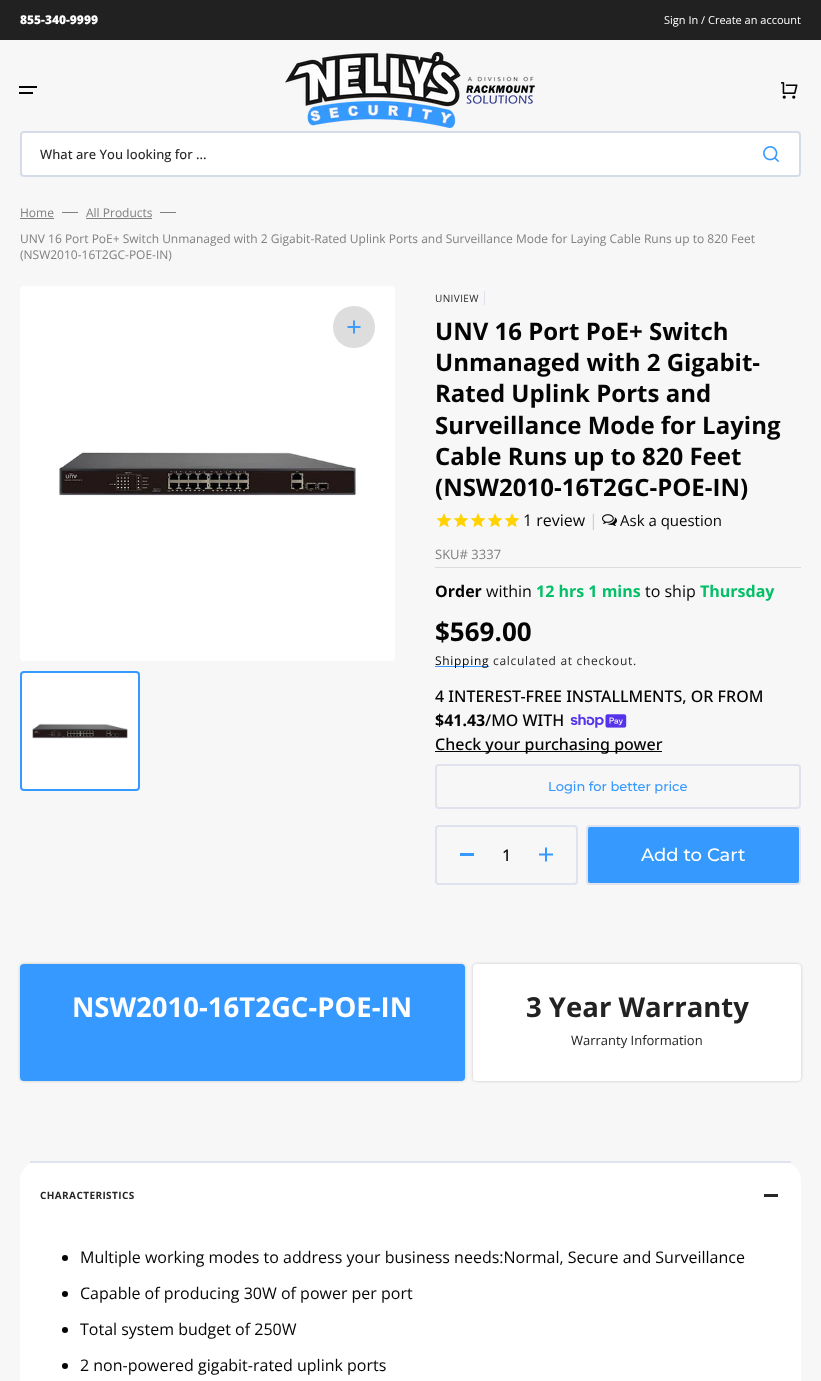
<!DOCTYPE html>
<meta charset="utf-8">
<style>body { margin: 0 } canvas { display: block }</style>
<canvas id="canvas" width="821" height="1381"></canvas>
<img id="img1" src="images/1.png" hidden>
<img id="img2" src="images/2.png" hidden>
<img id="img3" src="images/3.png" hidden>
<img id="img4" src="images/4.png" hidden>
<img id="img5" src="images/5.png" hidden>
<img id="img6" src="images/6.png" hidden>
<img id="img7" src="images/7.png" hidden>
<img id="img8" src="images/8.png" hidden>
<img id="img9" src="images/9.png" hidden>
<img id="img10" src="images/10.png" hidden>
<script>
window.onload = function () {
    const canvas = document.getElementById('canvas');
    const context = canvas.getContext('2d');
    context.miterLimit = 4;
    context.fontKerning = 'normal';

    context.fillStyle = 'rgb(247, 247, 247)';
    context.fillRect(0, 0, 821, 1381);
    context.fillStyle = 'rgb(33, 33, 33)';
    context.fillRect(0, 0, 821, 40);
    context.fillStyle = 'rgb(4, 4, 4)';
    context.fillRect(19, 86, 18, 2);
    context.fillRect(19, 92, 14, 2);
    context.drawImage(document.getElementById('img1'), 285, 52, 250, 76);
    context.drawImage(document.getElementById('img2'), 781, 82, 17, 17);
    context.fillStyle = 'rgb(255, 255, 255)';
    context.beginPath();
    context.roundRect(21, 132, 779, 44, 3);
    context.fill();
    context.strokeStyle = 'rgb(213, 220, 231)';
    context.lineWidth = 2;
    context.stroke();
    context.drawImage(document.getElementById('img3'), 763, 146, 17, 17);
    context.fillStyle = 'rgb(128, 128, 128)';
    context.fillRect(20, 218, 34, 1);
    context.fillRect(62, 212, 16, 1);
    context.fillRect(86, 218, 66, 1);
    context.fillRect(160, 212, 16, 1);
    context.fillStyle = 'rgb(255, 255, 255)';
    context.beginPath();
    context.roundRect(20, 286, 375, 375, 4);
    context.fill();
    context.drawImage(document.getElementById('img4'), 58, 452, 300, 45);
    context.fillStyle = 'rgb(247, 247, 247)';
    context.beginPath();
    context.arc(354, 327, 21, 0, 2 * Math.PI);
    context.fill();
    context.fillStyle = 'rgba(4, 4, 4, 0.1)';
    context.beginPath();
    context.moveTo(354, 306);
    context.bezierCurveTo(382, 306, 382, 348, 354, 348);
    context.bezierCurveTo(326, 348, 326, 306, 354, 306);
    context.closePath();
    context.fill();
    context.drawImage(document.getElementById('img5'), 347, 320, 14, 14);
    context.fillStyle = 'rgb(255, 255, 255)';
    context.fillRect(20, 671, 120, 120);
    context.drawImage(document.getElementById('img6'), 32, 723, 96, 16);
    context.beginPath();
    context.roundRect(21, 672, 118, 118, 3);
    context.strokeStyle = 'rgb(53, 153, 255)';
    context.stroke();
    context.fillStyle = 'rgb(224, 227, 238)';
    context.fillRect(484, 291, 1, 14);
    context.drawImage(document.getElementById('img7'), 436, 513, 16, 15);
    context.drawImage(document.getElementById('img7'), 453, 513, 16, 15);
    context.drawImage(document.getElementById('img7'), 470, 513, 16, 15);
    context.drawImage(document.getElementById('img7'), 487, 513, 16, 15);
    context.drawImage(document.getElementById('img7'), 504, 513, 16, 15);
    context.drawImage(document.getElementById('img8'), 602, 514, 15, 12);
    context.fillStyle = 'rgb(221, 221, 221)';
    context.fillRect(435, 567, 366, 1);
    context.fillStyle = 'rgb(53, 153, 255)';
    context.fillRect(435, 666, 54, 1);
    context.drawImage(document.getElementById('img9'), 570, 714, 57, 14);
    context.fillStyle = 'rgb(4, 4, 4)';
    context.fillRect(435, 751, 227, 1);
    context.beginPath();
    context.roundRect(436, 765, 364, 43, 3);
    context.strokeStyle = 'rgb(224, 227, 238)';
    context.stroke();
    context.beginPath();
    context.roundRect(436, 826, 141, 58, 3);
    context.stroke();
    context.fillStyle = 'rgb(53, 153, 255)';
    context.fillRect(460, 853, 14, 3);
    context.drawImage(document.getElementById('img10'), 539, 847, 14, 15);
    context.fillStyle = 'rgb(53, 153, 254)';
    context.beginPath();
    context.roundRect(587, 826, 213, 58, 3);
    context.fill();
    context.stroke();
    context.fillStyle = 'rgba(0, 0, 0, 0.2)';
    context.filter = 'blur(1.5px)';
    context.beginPath();
    context.roundRect(20, 964, 445, 117, 4);
    context.fill();
    context.filter = 'none';
    context.fillStyle = 'rgb(53, 153, 255)';
    context.beginPath();
    context.roundRect(20, 964, 445, 117, 4);
    context.fill();
    context.fillStyle = 'rgba(0, 0, 0, 0.2)';
    context.filter = 'blur(1.5px)';
    context.beginPath();
    context.roundRect(473, 964, 328, 117, 4);
    context.fill();
    context.filter = 'none';
    context.fillStyle = 'rgb(255, 255, 255)';
    context.beginPath();
    context.roundRect(473, 964, 328, 117, 4);
    context.fill();
    context.beginPath();
    context.roundRect(20, 1161, 781, 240, 20);
    context.fill();
    context.fillStyle = 'rgb(224, 227, 238)';
    context.fillRect(30, 1161, 761, 2);
    context.fillStyle = 'rgb(40, 40, 40)';
    context.fillRect(764, 1194, 14, 3);
    context.fillStyle = 'rgb(4, 4, 4)';
    context.beginPath();
    context.arc(65, 1258, 3, 0, 2 * Math.PI);
    context.fill();
    context.beginPath();
    context.arc(65, 1294, 3, 0, 2 * Math.PI);
    context.fill();
    context.beginPath();
    context.arc(65, 1330, 3, 0, 2 * Math.PI);
    context.fill();
    context.beginPath();
    context.arc(65, 1366, 3, 0, 2 * Math.PI);
    context.fill();
    context.font = '800 12px Open Sans';
    context.fillStyle = 'rgb(255, 255, 255)';
    context.fillText('855-340-9999', 20, 24);
    context.font = '11px Open Sans';
    context.fillText('Sign In / Create an account', 664, 24);
    context.font = '500 13px Open Sans';
    context.fillStyle = 'rgb(40, 40, 40)';
    context.fillText('What are You looking for ...', 40, 159);
    context.font = '12px Open Sans';
    context.fillStyle = 'rgb(128, 128, 128)';
    context.fillText('Home', 20, 217);
    context.fillText('All Products', 86, 217);
    context.fillText('UNV 16 Port PoE+ Switch Unmanaged with 2 Gigabit-Rated Uplink Ports and Surveillance Mode for Laying Cable Runs up to 820 Feet', 20, 243);
    context.fillText('(NSW2010-16T2GC-POE-IN)', 20, 259);
    context.letterSpacing = '0.4px';
    context.font = '10px Open Sans';
    context.fillStyle = 'rgb(40, 40, 40)';
    context.fillText('UNIVIEW', 435, 302);
    context.letterSpacing = '0px';
    context.font = 'bold 24px Open Sans';
    context.fillStyle = 'rgb(4, 4, 4)';
    context.fillText('UNV 16 Port PoE+ Switch', 435, 340);
    context.fillText('Unmanaged with 2 Gigabit-', 435, 371);
    context.fillText('Rated Uplink Ports and', 435, 402);
    context.fillText('Surveillance Mode for Laying', 435, 434);
    context.fillText('Cable Runs up to 820 Feet', 435, 465);
    context.fillText('(NSW2010-16T2GC-POE-IN)', 435, 496);
    context.font = '16px Open Sans';
    context.fillText('1 review', 523, 526);
    context.fillStyle = 'rgb(204, 204, 204)';
    context.fillText('|', 589, 526);
    context.font = '15px Open Sans';
    context.fillStyle = 'rgb(4, 4, 4)';
    context.fillText('Ask a question', 620, 526);
    context.font = '13px Open Sans';
    context.fillStyle = 'rgb(128, 128, 128)';
    context.fillText('SKU# 3337', 435, 559);
    context.font = 'bold 16px Open Sans';
    context.fillStyle = 'rgb(4, 4, 4)';
    context.fillText('Order', 435, 597);
    context.font = '16px Open Sans';
    context.fillText('within', 486, 597);
    context.font = 'bold 16px Open Sans';
    context.fillStyle = 'rgb(3, 191, 103)';
    context.fillText('12 hrs 1 mins', 536, 597);
    context.font = '16px Open Sans';
    context.fillStyle = 'rgb(4, 4, 4)';
    context.fillText('to ship', 645, 597);
    context.font = 'bold 16px Open Sans';
    context.fillStyle = 'rgb(3, 191, 103)';
    context.fillText('Thursday', 700, 597);
    context.font = 'bold 26px Open Sans';
    context.fillStyle = 'rgb(4, 4, 4)';
    context.fillText('$569.00', 435, 641);
    context.letterSpacing = '0.7px';
    context.font = '12px Open Sans';
    context.fillText('Shipping', 435, 665);
    context.fillStyle = 'rgb(40, 40, 40)';
    context.fillText('calculated at checkout.', 493, 665);
    context.letterSpacing = '0px';
    context.font = '500 16px Noto Sans';
    context.fillStyle = 'rgb(4, 4, 4)';
    context.fillText('4 INTEREST-FREE INSTALLMENTS, OR FROM', 435, 702);
    context.font = 'bold 16px Noto Sans';
    context.fillText('$41.43', 435, 726);
    context.font = '500 16px Noto Sans';
    context.fillText('/MO WITH', 485, 726);
    context.fillText('Check your purchasing power', 435, 750);
    context.font = '500 13px Montserrat';
    context.fillStyle = 'rgb(53, 153, 255)';
    context.fillText('Login for better price', 548, 791);
    context.font = '500 16px Open Sans';
    context.fillStyle = 'rgb(4, 4, 4)';
    context.fillText('1', 502, 861);
    context.font = '500 18px Montserrat';
    context.fillStyle = 'rgb(255, 255, 255)';
    context.fillText('Add to Cart', 641, 861);
    context.font = 'bold 27.5px Open Sans';
    context.fillText('NSW2010-16T2GC-POE-IN', 72, 1017);
    context.fillStyle = 'rgb(34, 34, 34)';
    context.fillText('3 Year Warranty', 526, 1017);
    context.font = '13px Open Sans';
    context.fillText('Warranty Information', 571, 1045);
    context.letterSpacing = '0.4px';
    context.font = 'bold 10px Open Sans';
    context.fillStyle = 'rgb(40, 40, 40)';
    context.fillText('CHARACTERISTICS', 40, 1199);
    context.letterSpacing = '0px';
    context.font = '16px Open Sans';
    context.fillStyle = 'rgb(4, 4, 4)';
    context.fillText('Multiple working modes to address your business needs:Normal, Secure and Surveillance', 80, 1263);
    context.fillText('Capable of producing 30W of power per port', 80, 1299);
    context.fillText('Total system budget of 250W', 80, 1335);
    context.fillText('2 non-powered gigabit-rated uplink ports', 80, 1371);
};
</script>
